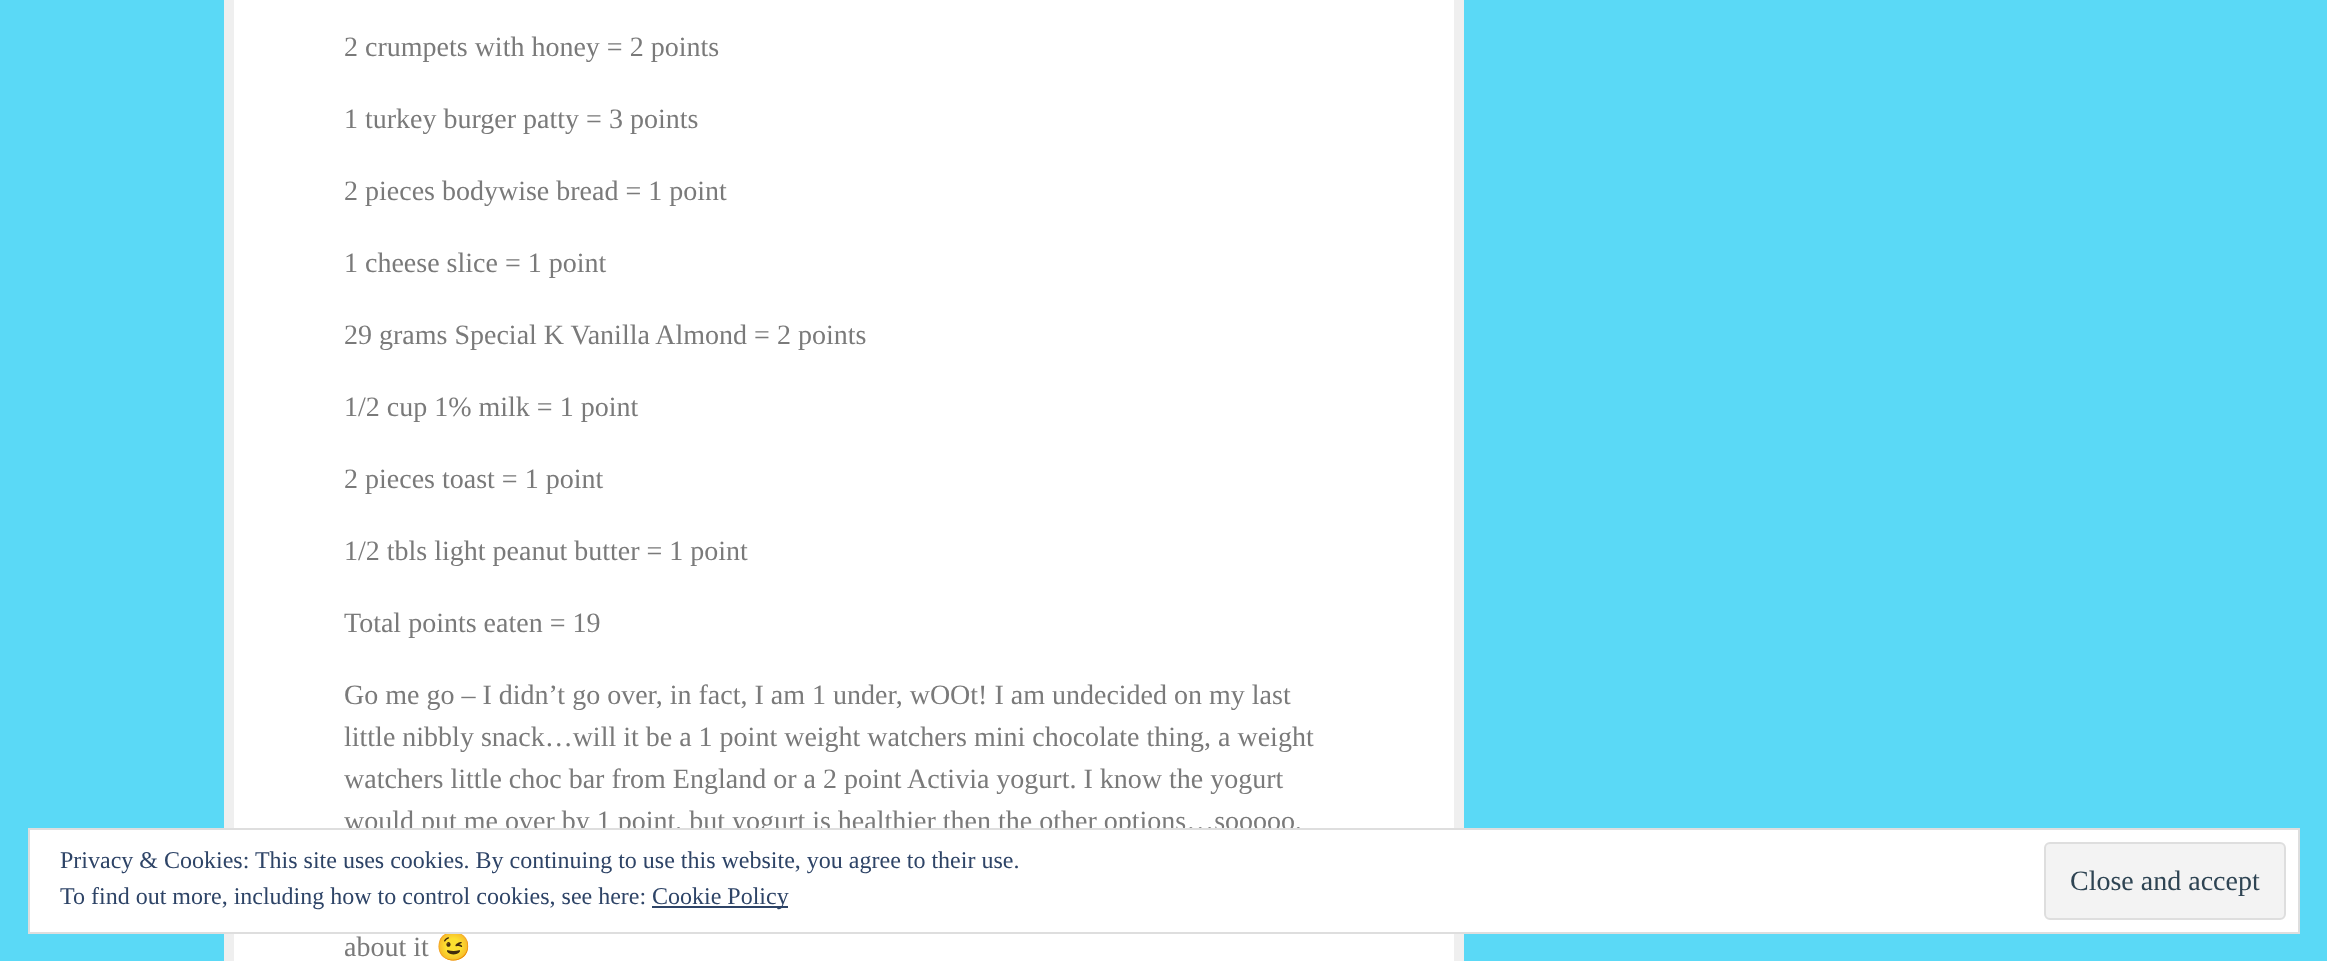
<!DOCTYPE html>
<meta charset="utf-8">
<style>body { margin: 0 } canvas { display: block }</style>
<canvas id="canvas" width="2327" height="961"></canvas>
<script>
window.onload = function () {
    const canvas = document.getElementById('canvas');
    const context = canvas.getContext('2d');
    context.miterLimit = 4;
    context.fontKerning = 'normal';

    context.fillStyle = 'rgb(90, 217, 246)';
    context.fillRect(0, 0, 2327, 961);
    context.fillStyle = 'rgb(255, 255, 255)';
    context.beginPath();
    context.rect(229, -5, 1230, 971);
    context.fill();
    context.strokeStyle = 'rgb(239, 239, 239)';
    context.lineWidth = 10;
    context.stroke();
    context.font = '28px Liberation Serif';
    context.fillStyle = 'rgb(122, 122, 122)';
    context.fillText('2 crumpets with honey = 2 points', 344, 56);
    context.fillText('1 turkey burger patty = 3 points', 344, 128);
    context.fillText('2 pieces bodywise bread = 1 point', 344, 200);
    context.fillText('1 cheese slice = 1 point', 344, 272);
    context.fillText('29 grams Special K Vanilla Almond = 2 points', 344, 344);
    context.fillText('1/2 cup 1% milk = 1 point', 344, 416);
    context.fillText('2 pieces toast = 1 point', 344, 488);
    context.fillText('1/2 tbls light peanut butter = 1 point', 344, 560);
    context.fillText('Total points eaten = 19', 344, 632);
    context.fillText('Go me go – I didn’t go over, in fact, I am 1 under, wOOt! I am undecided on my last', 344, 704);
    context.fillText('little nibbly snack…will it be a 1 point weight watchers mini chocolate thing, a weight', 344, 746);
    context.fillText('watchers little choc bar from England or a 2 point Activia yogurt. I know the yogurt', 344, 788);
    context.fillText('would put me over by 1 point, but yogurt is healthier then the other options…sooooo,', 344, 830);
    context.fillText('about it', 344, 956);
    context.font = '28px Noto Color Emoji';
    context.fillText('😉', 436, 956);
    context.fillStyle = 'rgb(255, 255, 255)';
    context.beginPath();
    context.rect(29, 829, 2270, 104);
    context.fill();
    context.strokeStyle = 'rgb(222, 222, 222)';
    context.lineWidth = 2;
    context.stroke();
    context.font = '24px Liberation Serif';
    context.fillStyle = 'rgb(46, 68, 103)';
    context.fillText('Privacy & Cookies: This site uses cookies. By continuing to use this website, you agree to their use.', 60, 868);
    context.fillStyle = 'rgb(243, 243, 243)';
    context.beginPath();
    context.roundRect(2045, 843, 240, 76, 5);
    context.fill();
    context.stroke();
    context.font = '28px Liberation Serif';
    context.fillStyle = 'rgb(46, 68, 83)';
    context.fillText('Close and accept', 2070, 890);
    context.font = '24px Liberation Serif';
    context.fillStyle = 'rgb(46, 68, 103)';
    context.fillText('To find out more, including how to control cookies, see here:', 60, 904);
    context.fillRect(652, 906, 136, 2);
    context.fillText('Cookie Policy', 652, 904);
};
</script>
